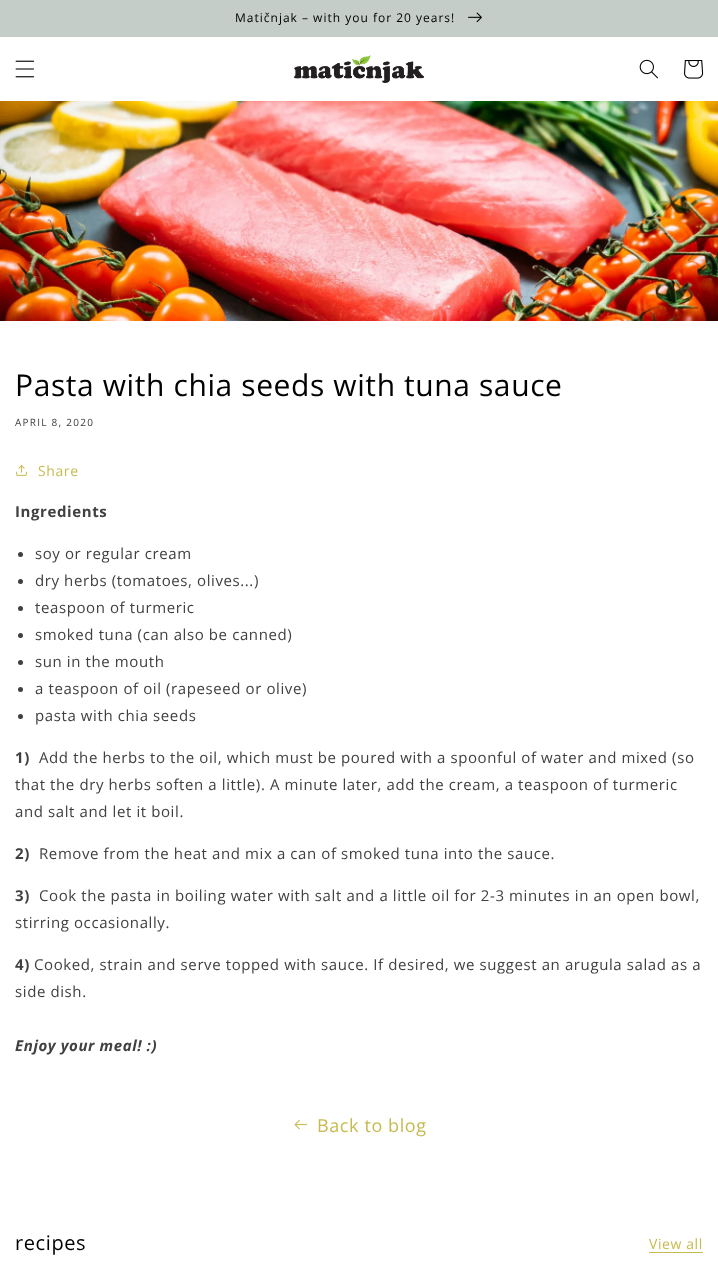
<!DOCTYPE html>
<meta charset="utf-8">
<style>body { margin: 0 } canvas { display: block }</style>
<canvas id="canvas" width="718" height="1269"></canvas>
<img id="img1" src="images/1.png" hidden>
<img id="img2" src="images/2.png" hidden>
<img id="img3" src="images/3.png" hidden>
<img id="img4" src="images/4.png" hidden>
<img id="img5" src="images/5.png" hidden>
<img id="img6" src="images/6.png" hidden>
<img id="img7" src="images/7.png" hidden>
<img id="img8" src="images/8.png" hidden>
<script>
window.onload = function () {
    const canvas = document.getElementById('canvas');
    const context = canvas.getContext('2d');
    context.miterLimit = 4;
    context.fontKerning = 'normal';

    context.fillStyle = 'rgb(255, 255, 255)';
    context.fillRect(0, 0, 718, 1269);
    context.fillStyle = 'rgb(192, 201, 196)';
    context.fillRect(0, 36, 718, 1);
    context.fillStyle = 'rgb(196, 205, 200)';
    context.fillRect(0, 0, 718, 36);
    context.drawImage(document.getElementById('img1'), 468, 12, 14, 11);
    context.drawImage(document.getElementById('img2'), 15, 60, 20, 18);
    context.drawImage(document.getElementById('img3'), 294, 55, 130, 28);
    context.drawImage(document.getElementById('img4'), 639, 59, 19, 20);
    context.drawImage(document.getElementById('img5'), 684, 60, 20, 19);
    context.drawImage(document.getElementById('img6'), 0, 101, 718, 220);
    context.drawImage(document.getElementById('img7'), 16, 465, 11, 11);
    context.fillStyle = 'rgb(64, 64, 64)';
    context.beginPath();
    context.arc(20.5, 554.5, 2.5, 0, 2 * Math.PI);
    context.fill();
    context.beginPath();
    context.arc(20.5, 581.5, 2.5, 0, 2 * Math.PI);
    context.fill();
    context.beginPath();
    context.arc(20.5, 608.5, 2.5, 0, 2 * Math.PI);
    context.fill();
    context.beginPath();
    context.arc(20.5, 635.5, 2.5, 0, 2 * Math.PI);
    context.fill();
    context.beginPath();
    context.arc(20.5, 662.5, 2.5, 0, 2 * Math.PI);
    context.fill();
    context.beginPath();
    context.arc(20.5, 689.5, 2.5, 0, 2 * Math.PI);
    context.fill();
    context.beginPath();
    context.arc(20.5, 716.5, 2.5, 0, 2 * Math.PI);
    context.fill();
    context.drawImage(document.getElementById('img8'), 294, 1120, 13, 10);
    context.fillStyle = 'rgb(198, 186, 80)';
    context.fillRect(649, 1252, 54, 1);
    context.letterSpacing = '1px';
    context.font = '12px Open Sans';
    context.fillStyle = 'rgb(0, 0, 0)';
    context.fillText('Matičnjak – with you for 20 years!', 235, 22);
    context.letterSpacing = '0.6px';
    context.font = '30px Open Sans';
    context.fillText('Pasta with chia seeds with tuna sauce', 15, 396);
    context.letterSpacing = '1.25px';
    context.font = '10px Open Sans';
    context.fillStyle = 'rgb(64, 64, 64)';
    context.fillText('APRIL 8, 2020', 15, 426);
    context.letterSpacing = '0.6px';
    context.font = '14px Open Sans';
    context.fillStyle = 'rgb(198, 186, 80)';
    context.fillText('Share', 38, 476);
    context.font = 'bold 15px Open Sans';
    context.fillStyle = 'rgb(64, 64, 64)';
    context.fillText('Ingredients', 15, 517);
    context.font = '15px Open Sans';
    context.fillText('soy or regular cream', 35, 559);
    context.fillText('dry herbs (tomatoes, olives...)', 35, 586);
    context.fillText('teaspoon of turmeric', 35, 613);
    context.fillText('smoked tuna (can also be canned)', 35, 640);
    context.fillText('sun in the mouth', 35, 667);
    context.fillText('a teaspoon of oil (rapeseed or olive)', 35, 694);
    context.fillText('pasta with chia seeds', 35, 721);
    context.font = 'bold 15px Open Sans';
    context.fillText('1)', 15, 763);
    context.font = '15px Open Sans';
    context.fillText('Add the herbs to the oil, which must be poured with a spoonful of water and mixed (so', 39, 763);
    context.fillText('that the dry herbs soften a little). A minute later, add the cream, a teaspoon of turmeric', 15, 790);
    context.fillText('and salt and let it boil.', 15, 817);
    context.font = 'bold 15px Open Sans';
    context.fillText('2)', 15, 859);
    context.font = '15px Open Sans';
    context.fillText('Remove from the heat and mix a can of smoked tuna into the sauce.', 39, 859);
    context.font = 'bold 15px Open Sans';
    context.fillText('3)', 15, 901);
    context.font = '15px Open Sans';
    context.fillText('Cook the pasta in boiling water with salt and a little oil for 2-3 minutes in an open bowl,', 39, 901);
    context.fillText('stirring occasionally.', 15, 928);
    context.font = 'bold 15px Open Sans';
    context.fillText('4)', 15, 970);
    context.font = '15px Open Sans';
    context.fillText('Cooked, strain and serve topped with sauce. If desired, we suggest an arugula salad as a', 34, 970);
    context.fillText('side dish.', 15, 997);
    context.font = 'italic bold 15px Open Sans';
    context.fillText('Enjoy your meal! :)', 15, 1051);
    context.font = '18px Open Sans';
    context.fillStyle = 'rgb(198, 186, 80)';
    context.fillText('Back to blog', 317, 1132);
    context.font = '20px Open Sans';
    context.fillStyle = 'rgb(0, 0, 0)';
    context.fillText('recipes', 15, 1250);
    context.font = '14px Open Sans';
    context.fillStyle = 'rgb(198, 186, 80)';
    context.fillText('View all', 649, 1249);
};
</script>
